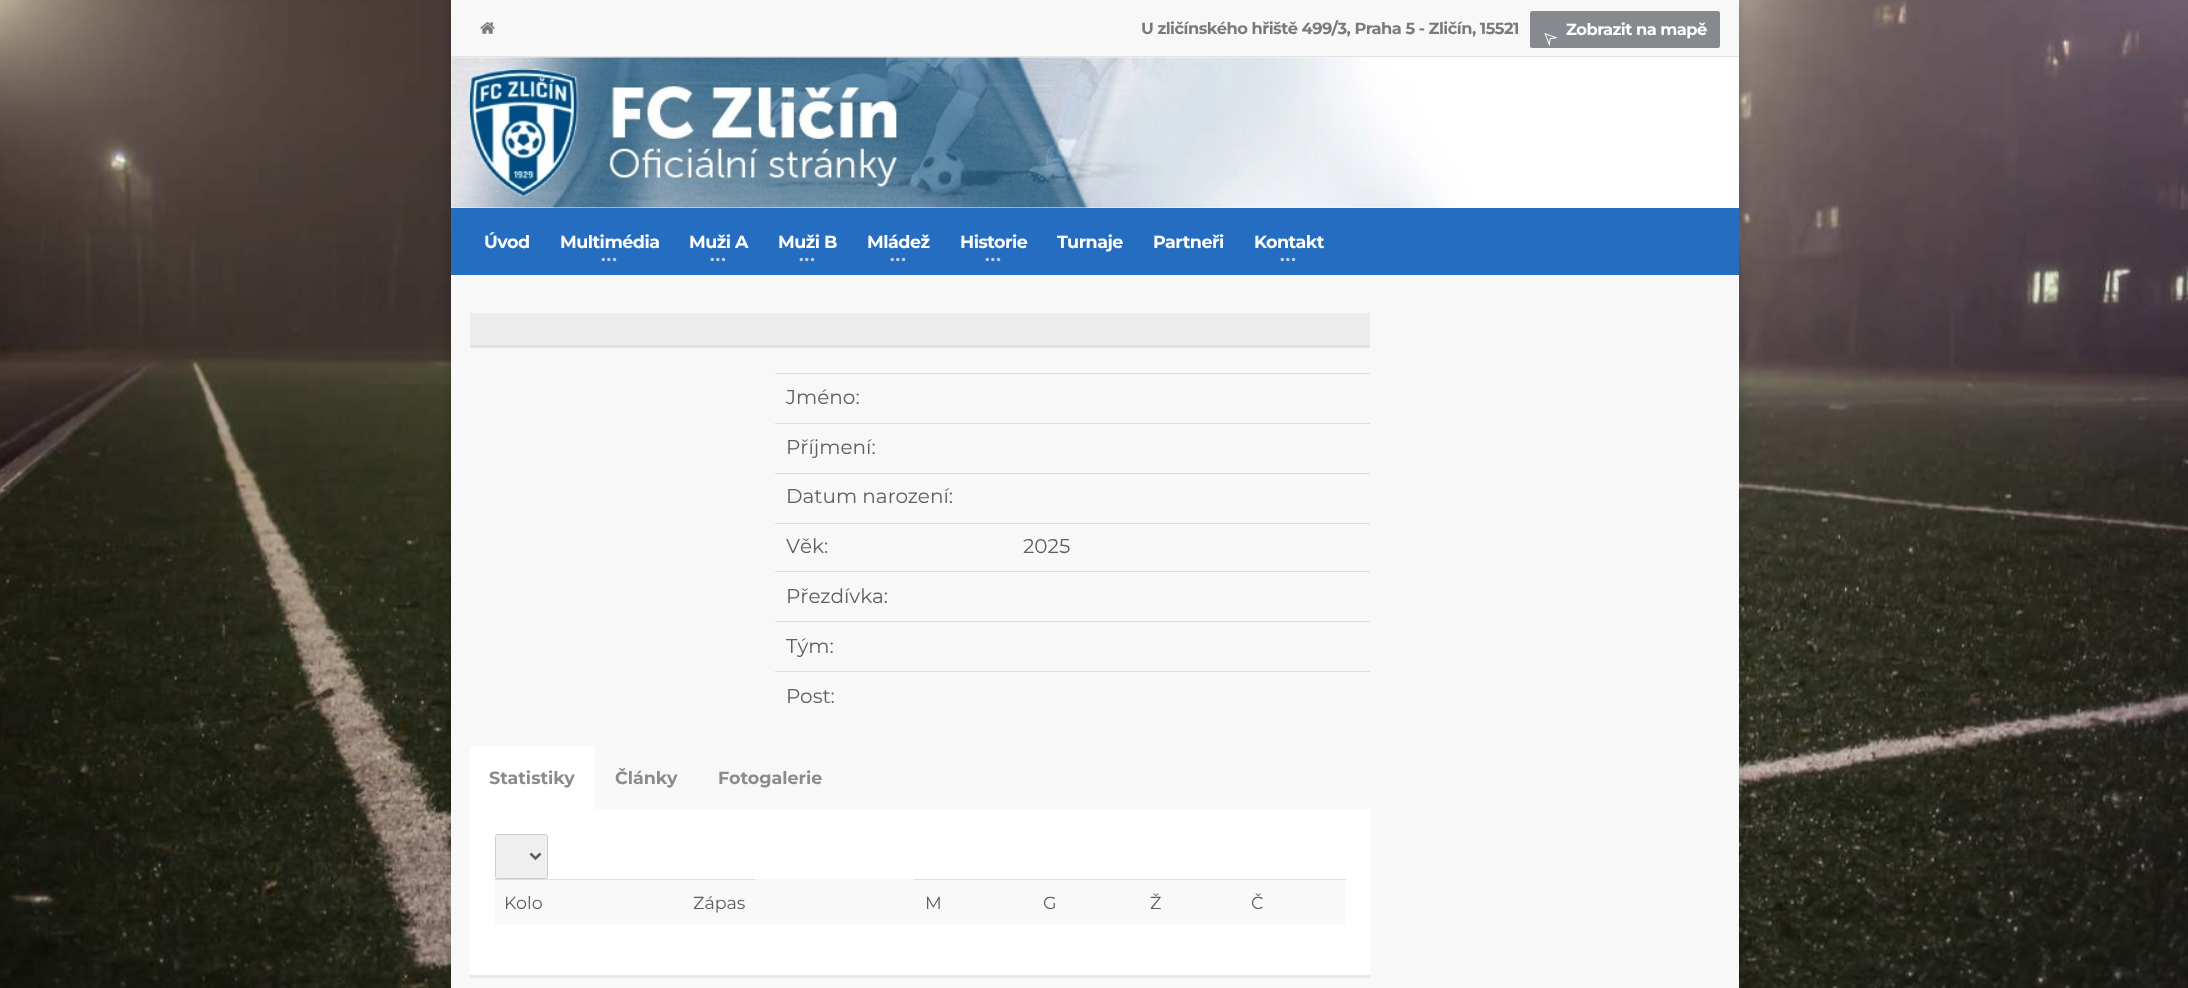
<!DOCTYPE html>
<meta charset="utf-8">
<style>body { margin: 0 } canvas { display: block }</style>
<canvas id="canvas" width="2188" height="988"></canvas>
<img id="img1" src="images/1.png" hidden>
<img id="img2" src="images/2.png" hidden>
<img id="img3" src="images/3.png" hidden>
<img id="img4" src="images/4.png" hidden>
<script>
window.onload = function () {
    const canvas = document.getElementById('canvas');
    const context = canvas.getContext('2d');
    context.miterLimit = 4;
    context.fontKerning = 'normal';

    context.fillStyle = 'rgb(255, 255, 255)';
    context.fillRect(0, 0, 2188, 988);
    context.drawImage(document.getElementById('img1'), 0, 0, 2188, 988);
    context.fillStyle = 'rgba(0, 0, 0, 0.2)';
    context.filter = 'blur(6px)';
    context.beginPath();
    context.rect(451, 0, 1288, 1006);
    context.fill();
    context.filter = 'none';
    context.fillStyle = 'rgb(248, 248, 248)';
    context.fillRect(451, 0, 1288, 988);
    context.fillStyle = 'rgb(228, 227, 226)';
    context.fillRect(451, 56, 1288, 1);
    context.drawImage(document.getElementById('img2'), 480, 22, 15, 12);
    context.fillStyle = 'rgb(134, 137, 142)';
    context.beginPath();
    context.roundRect(1530, 11, 190, 37, 2.5);
    context.fill();
    context.drawImage(document.getElementById('img3'), 1544, 33, 14, 14);
    context.drawImage(document.getElementById('img4'), 451, 57, 1288, 151);
    context.fillStyle = 'rgb(37, 109, 193)';
    context.fillRect(451, 208, 1288, 67);
    context.fillStyle = 'rgb(236, 236, 236)';
    context.fillRect(470, 313, 900, 32);
    context.fillStyle = 'rgb(228, 227, 226)';
    context.fillRect(470, 345, 900, 3);
    context.fillStyle = 'rgb(221, 221, 221)';
    context.fillRect(775, 373, 595, 1);
    context.fillRect(775, 423, 595, 1);
    context.fillRect(775, 473, 595, 1);
    context.fillRect(775, 523, 595, 1);
    context.fillRect(775, 571, 595, 1);
    context.fillRect(775, 621, 595, 1);
    context.fillRect(775, 671, 595, 1);
    context.fillStyle = 'rgb(255, 255, 255)';
    context.fillRect(470, 746, 125, 63);
    context.fillStyle = 'rgb(233, 233, 233)';
    context.fillRect(470, 975, 900, 3);
    context.fillStyle = 'rgb(255, 255, 255)';
    context.fillRect(470, 809, 900, 166);
    context.fillStyle = 'rgb(239, 239, 239)';
    context.beginPath();
    context.roundRect(495.5, 834.5, 52, 44, 2);
    context.fill();
    context.strokeStyle = 'rgb(204, 204, 204)';
    context.stroke();
    context.beginPath();
    context.moveTo(530.5, 853.5);
    context.lineTo(535.5, 858.5);
    context.lineTo(540.5, 853.5);
    context.strokeStyle = 'rgb(94, 94, 94)';
    context.lineWidth = 2.5;
    context.stroke();
    context.fillStyle = 'rgb(249, 249, 249)';
    context.fillRect(495, 879, 850, 46);
    context.fillStyle = 'rgb(221, 221, 221)';
    context.fillRect(494, 879, 261, 1);
    context.fillRect(914, 879, 432, 1);
    context.letterSpacing = '-0.5px';
    context.font = 'bold 16.25px Montserrat';
    context.fillStyle = 'rgb(122, 122, 121)';
    context.fillText('U zličínského hřiště 499/3, Praha 5 - Zličín, 15521', 1141, 34);
    context.fillStyle = 'rgb(255, 255, 255)';
    context.fillText('Zobrazit na mapě', 1566, 35);
    context.font = 'bold 17.5px Montserrat';
    context.fillText('Úvod', 484, 248);
    context.fillText('Multimédia', 560, 248);
    context.letterSpacing = '1px';
    context.fillStyle = 'rgb(190, 211, 236)';
    context.fillText('...', 601, 261);
    context.letterSpacing = '-0.5px';
    context.fillStyle = 'rgb(255, 255, 255)';
    context.fillText('Muži A', 689, 248);
    context.letterSpacing = '1px';
    context.fillStyle = 'rgb(190, 211, 236)';
    context.fillText('...', 710, 261);
    context.letterSpacing = '-0.5px';
    context.fillStyle = 'rgb(255, 255, 255)';
    context.fillText('Muži B', 778, 248);
    context.letterSpacing = '1px';
    context.fillStyle = 'rgb(190, 211, 236)';
    context.fillText('...', 799, 261);
    context.letterSpacing = '-0.5px';
    context.fillStyle = 'rgb(255, 255, 255)';
    context.fillText('Mládež', 867, 248);
    context.letterSpacing = '1px';
    context.fillStyle = 'rgb(190, 211, 236)';
    context.fillText('...', 890, 261);
    context.letterSpacing = '-0.5px';
    context.fillStyle = 'rgb(255, 255, 255)';
    context.fillText('Historie', 960, 248);
    context.letterSpacing = '1px';
    context.fillStyle = 'rgb(190, 211, 236)';
    context.fillText('...', 985, 261);
    context.letterSpacing = '-0.5px';
    context.fillStyle = 'rgb(255, 255, 255)';
    context.fillText('Turnaje', 1057, 248);
    context.fillText('Partneři', 1153, 248);
    context.fillText('Kontakt', 1254, 248);
    context.letterSpacing = '1px';
    context.fillStyle = 'rgb(190, 211, 236)';
    context.fillText('...', 1280, 261);
    context.letterSpacing = '0px';
    context.font = '20px Montserrat';
    context.fillStyle = 'rgb(94, 94, 94)';
    context.fillText('Jméno:', 786, 404);
    context.fillText('Příjmení:', 786, 454);
    context.fillText('Datum narození:', 786, 503);
    context.fillText('Věk:', 786, 553);
    context.fillText('2025', 1023, 553);
    context.fillText('Přezdívka:', 786, 603);
    context.fillText('Tým:', 786, 653);
    context.fillText('Post:', 786, 703);
    context.font = 'bold 17.5px Montserrat';
    context.fillStyle = 'rgb(139, 139, 139)';
    context.fillText('Statistiky', 489, 784);
    context.fillText('Články', 615, 784);
    context.fillText('Fotogalerie', 718, 784);
    context.font = '17.5px Montserrat';
    context.fillStyle = 'rgb(94, 94, 94)';
    context.fillText('Kolo', 504, 909);
    context.fillText('Zápas', 693, 909);
    context.fillText('M', 925, 909);
    context.fillText('G', 1043, 909);
    context.fillText('Ž', 1150, 909);
    context.fillText('Č', 1251, 909);
};
</script>
